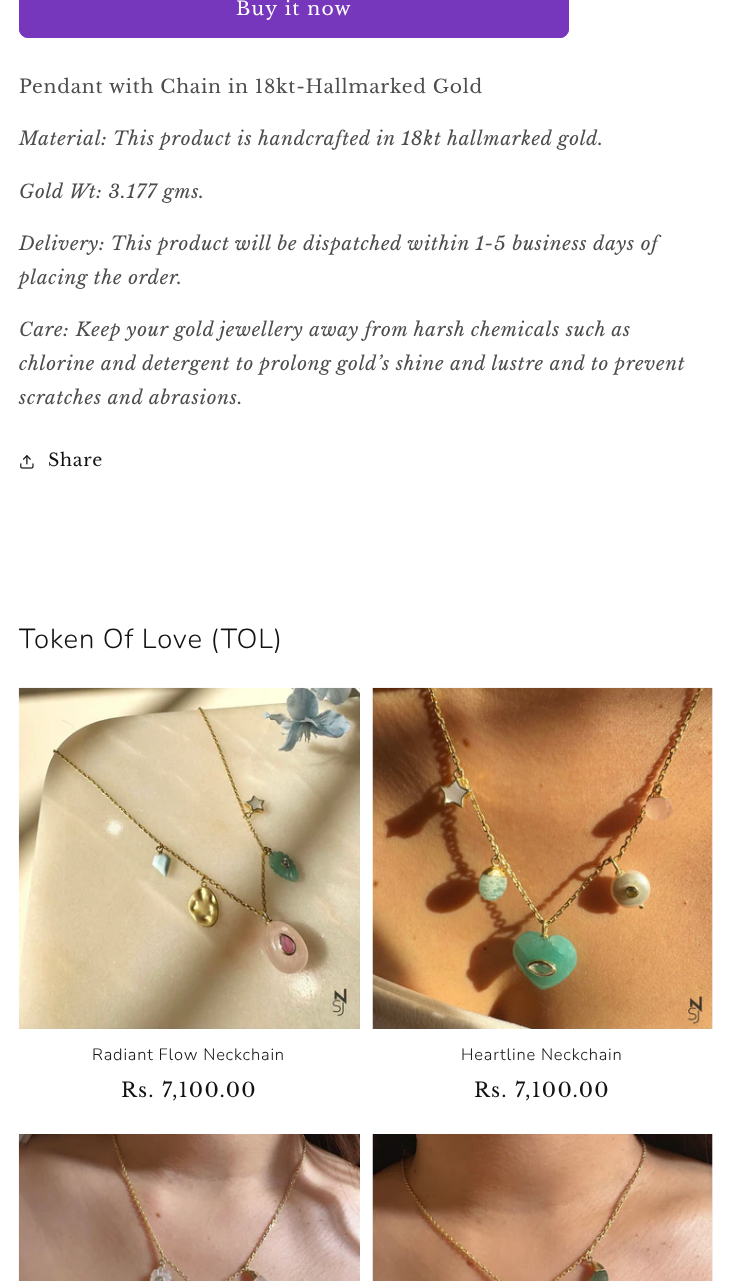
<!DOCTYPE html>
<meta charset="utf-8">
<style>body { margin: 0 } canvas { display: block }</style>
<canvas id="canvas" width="731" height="1281"></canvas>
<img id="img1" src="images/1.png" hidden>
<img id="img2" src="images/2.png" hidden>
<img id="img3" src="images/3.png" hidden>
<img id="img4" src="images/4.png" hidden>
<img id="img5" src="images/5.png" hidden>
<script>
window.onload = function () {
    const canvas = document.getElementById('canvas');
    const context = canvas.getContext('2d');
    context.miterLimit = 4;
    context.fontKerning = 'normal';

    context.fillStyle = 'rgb(255, 255, 255)';
    context.fillRect(0, 0, 731, 1281);
    context.fillStyle = 'rgb(119, 55, 189)';
    context.beginPath();
    context.roundRect(19, -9, 550, 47, 9);
    context.fill();
    context.beginPath();
    context.roundRect(19.5, -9.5, 549, 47, 8.5);
    context.strokeStyle = 'rgb(119, 55, 189)';
    context.stroke();
    context.drawImage(document.getElementById('img1'), 20, 455, 14, 14);
    context.drawImage(document.getElementById('img2'), 18, 687, 342, 342);
    context.fillStyle = 'rgb(255, 239, 242)';
    context.fillRect(712, 688, 1, 341);
    context.drawImage(document.getElementById('img3'), 372, 687, 341, 342);
    context.drawImage(document.getElementById('img4'), 18, 1134, 342, 147);
    context.fillRect(712, 1134, 1, 147);
    context.drawImage(document.getElementById('img5'), 372, 1134, 341, 147);
    context.letterSpacing = '1.25px';
    context.font = '18.75px Libre Baskerville';
    context.fillStyle = 'rgb(255, 255, 255)';
    context.fillText('Buy it now', 236, 15);
    context.letterSpacing = '0.75px';
    context.fillStyle = 'rgb(77, 77, 77)';
    context.fillText('Pendant with Chain in 18kt-Hallmarked Gold', 19, 93);
    context.font = 'italic 18.75px Libre Baskerville';
    context.fillText('Material: This product is handcrafted in 18kt hallmarked gold.', 19, 145);
    context.fillText('Gold Wt: 3.177 gms.', 19, 198);
    context.fillText('Delivery: This product will be dispatched within 1-5 business days of', 19, 250);
    context.fillText('placing the order.', 19, 284);
    context.fillText('Care: Keep your gold jewellery away from harsh chemicals such as', 19, 336);
    context.fillText('chlorine and detergent to prolong gold’s shine and lustre and to prevent', 19, 370);
    context.fillText('scratches and abrasions.', 19, 404);
    context.font = '17.5px Libre Baskerville';
    context.fillStyle = 'rgb(18, 18, 18)';
    context.fillText('Share', 48, 466);
    context.letterSpacing = '0.8px';
    context.font = '300 27.5px Nunito';
    context.fillText('Token Of Love (TOL)', 19, 648);
    context.font = '300 16.5px Nunito';
    context.fillText('Radiant Flow Neckchain', 92, 1060);
    context.letterSpacing = '1.25px';
    context.font = '20px Libre Baskerville';
    context.fillText('Rs. 7,100.00', 121, 1097);
    context.letterSpacing = '0.8px';
    context.font = '300 16.5px Nunito';
    context.fillText('Heartline Neckchain', 461, 1060);
    context.letterSpacing = '1.25px';
    context.font = '20px Libre Baskerville';
    context.fillText('Rs. 7,100.00', 474, 1097);
};
</script>
